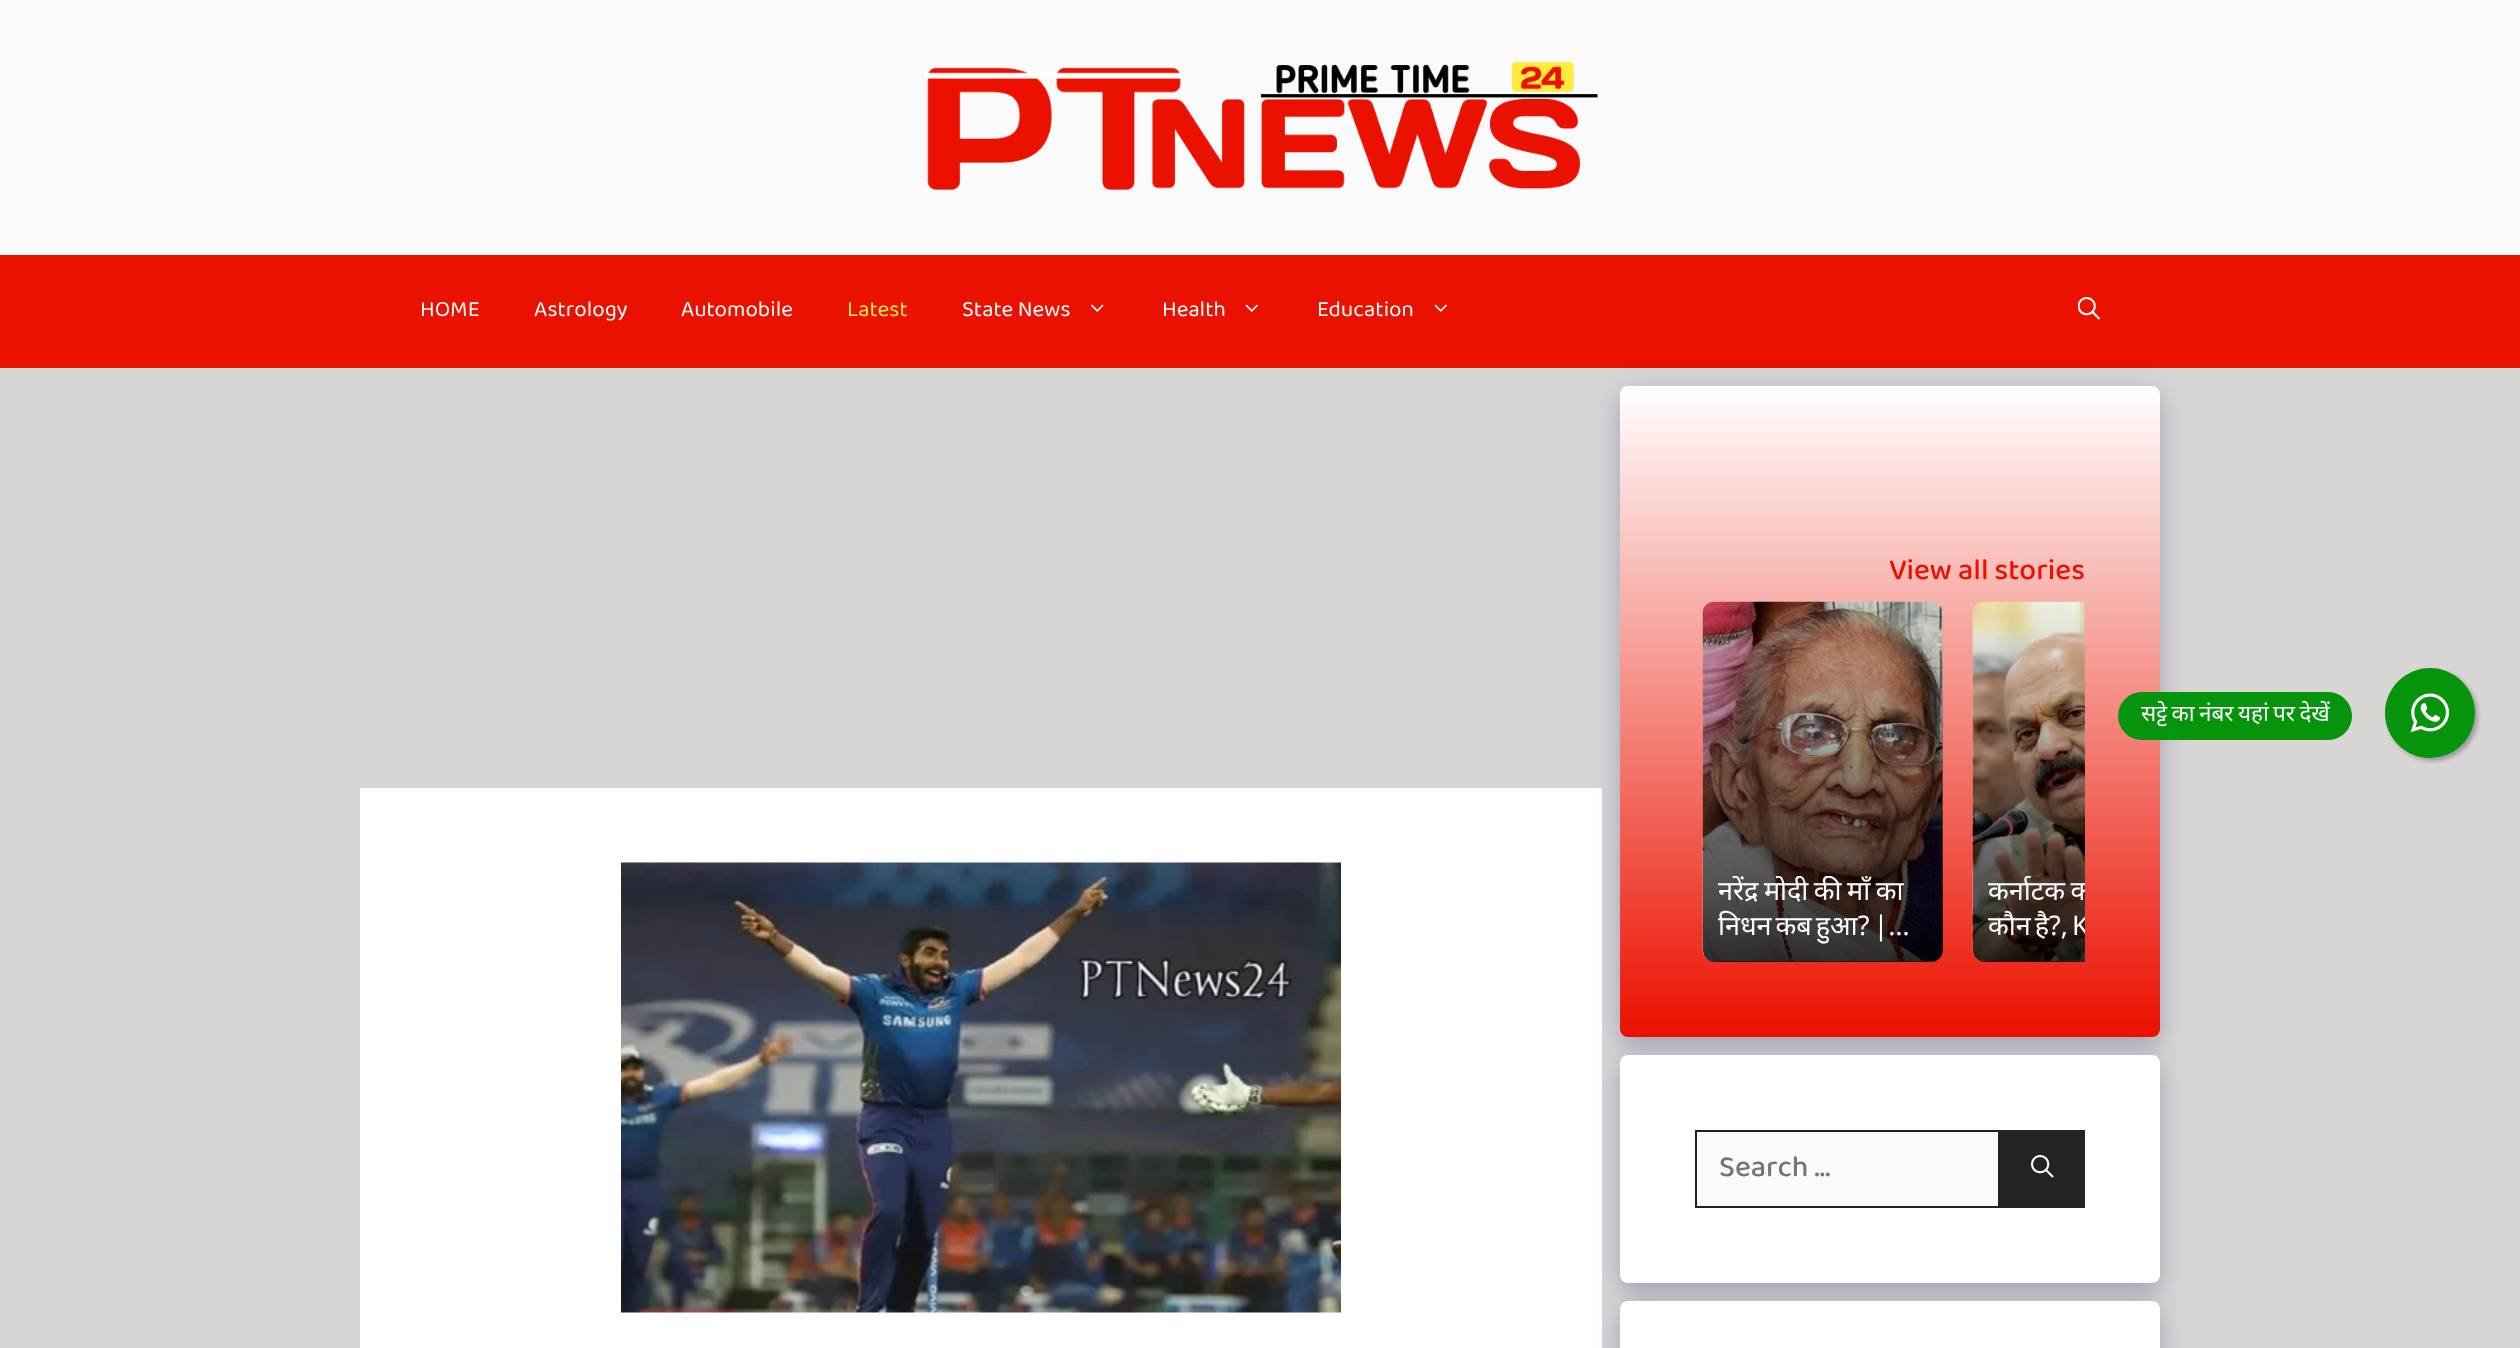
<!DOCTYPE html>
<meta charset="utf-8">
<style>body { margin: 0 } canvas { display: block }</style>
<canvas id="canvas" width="2520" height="1348"></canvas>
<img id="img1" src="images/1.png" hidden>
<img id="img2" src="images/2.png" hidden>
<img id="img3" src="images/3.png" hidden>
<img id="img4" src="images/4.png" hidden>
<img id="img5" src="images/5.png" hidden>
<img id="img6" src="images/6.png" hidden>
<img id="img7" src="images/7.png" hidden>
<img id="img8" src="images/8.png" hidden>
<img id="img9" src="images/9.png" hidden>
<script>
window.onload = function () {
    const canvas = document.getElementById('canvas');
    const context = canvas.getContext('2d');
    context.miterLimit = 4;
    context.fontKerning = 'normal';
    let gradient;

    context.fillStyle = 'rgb(216, 213, 213)';
    context.fillRect(0, 0, 2520, 1348);
    context.fillStyle = 'rgb(250, 250, 250)';
    context.fillRect(0, 0, 2520, 255);
    context.drawImage(document.getElementById('img1'), 926, 61, 672, 129);
    context.fillStyle = 'rgb(235, 17, 0)';
    context.fillRect(0, 255, 2520, 113);
    context.drawImage(document.getElementById('img2'), 1091, 304, 13, 8);
    context.drawImage(document.getElementById('img3'), 1245, 304, 13, 8);
    context.drawImage(document.getElementById('img3'), 1434, 304, 13, 8);
    context.drawImage(document.getElementById('img4'), 2078, 297, 22, 23);
    context.fillStyle = 'rgb(255, 255, 255)';
    context.fillRect(360, 788, 1242, 560);
    context.drawImage(document.getElementById('img5'), 621, 862, 720, 451);
    context.fillStyle = 'rgba(23, 43, 99, 0.3)';
    context.filter = 'blur(13.5px)';
    context.beginPath();
    context.roundRect(1620, 395, 540, 651, 8);
    context.fill();
    context.filter = 'none';
    gradient = context.createLinearGradient(1890, 386, 1890, 1037);
    gradient.addColorStop(0, 'rgb(255, 255, 255)');
    gradient.addColorStop(1, 'rgb(235, 17, 0)');
    context.fillStyle = gradient;
    context.beginPath();
    context.roundRect(1620, 386, 540, 651, 8);
    context.fill();
    context.drawImage(document.getElementById('img6'), 1702, 601, 241, 361);
    gradient = context.createLinearGradient(1823, 602, 1823, 962);
    gradient.addColorStop(0, 'rgba(0, 0, 0, 0)');
    gradient.addColorStop(1, 'rgba(0, 0, 0, 0.8)');
    context.fillStyle = gradient;
    context.beginPath();
    context.roundRect(1703, 602, 240, 360, 12);
    context.fill();
    context.drawImage(document.getElementById('img7'), 1972, 601, 113, 361);
    gradient = context.createLinearGradient(2093, 602, 2093, 962);
    gradient.addColorStop(0, 'rgba(0, 0, 0, 0)');
    gradient.addColorStop(1, 'rgba(0, 0, 0, 0.8)');
    context.fillStyle = gradient;
    context.beginPath();
    context.roundRect(1973, 602, 112, 360, [12, 0, 0, 12]);
    context.fill();
    context.fillStyle = 'rgba(23, 43, 99, 0.3)';
    context.filter = 'blur(13.5px)';
    context.beginPath();
    context.roundRect(1620, 1064, 540, 228, 8);
    context.fill();
    context.filter = 'none';
    context.fillStyle = 'rgb(255, 255, 255)';
    context.beginPath();
    context.roundRect(1620, 1055, 540, 228, 8);
    context.fill();
    context.fillStyle = 'rgb(250, 250, 250)';
    context.beginPath();
    context.rect(1696, 1131, 303, 76);
    context.fill();
    context.strokeStyle = 'rgb(33, 33, 33)';
    context.lineWidth = 2;
    context.stroke();
    context.fillStyle = 'rgb(36, 34, 38)';
    context.fillRect(2000, 1130, 85, 78);
    context.drawImage(document.getElementById('img8'), 2031, 1155, 23, 23);
    context.fillStyle = 'rgba(23, 43, 99, 0.3)';
    context.filter = 'blur(13.5px)';
    context.beginPath();
    context.roundRect(1620, 1310, 540, 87, 8);
    context.fill();
    context.filter = 'none';
    context.fillStyle = 'rgb(255, 255, 255)';
    context.beginPath();
    context.roundRect(1620, 1301, 540, 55, 8);
    context.fill();
    context.fillStyle = 'rgb(153, 153, 153)';
    context.filter = 'blur(2px)';
    context.beginPath();
    context.roundRect(2388, 671, 90, 90, 45);
    context.fill();
    context.filter = 'none';
    context.fillStyle = 'rgb(5, 148, 11)';
    context.beginPath();
    context.arc(2430, 713, 45, 0, 2 * Math.PI);
    context.fill();
    context.beginPath();
    context.roundRect(2118, 692, 234, 48, 24);
    context.fill();
    context.drawImage(document.getElementById('img9'), 2410, 693, 40, 40);
    context.font = '22.5px "Baloo Bhai 2"';
    context.fillStyle = 'rgb(255, 255, 255)';
    context.fillText('HOME', 420, 316);
    context.fillText('Astrology', 534, 316);
    context.fillText('Automobile', 681, 316);
    context.fillStyle = 'rgb(255, 235, 59)';
    context.fillText('Latest', 847, 316);
    context.fillStyle = 'rgb(255, 255, 255)';
    context.fillText('State News', 962, 316);
    context.fillText('Health', 1162, 316);
    context.fillText('Education', 1317, 316);
    context.font = '500 30px "Baloo Bhai 2"';
    context.fillStyle = 'rgb(235, 17, 0)';
    context.fillText('View all stories', 1889, 579);
    context.save();
    context.beginPath();
    context.rect(1718, 876, 210, 71);
    context.clip();
    context.wordSpacing = '-1.5px';
    context.font = '27px Noto Sans';
    context.fillStyle = 'rgb(255, 255, 255)';
    context.fillText('नरेंद्र मोदी की माँ का', 1718, 900);
    context.wordSpacing = '-3px';
    context.fillText('निधन कब हुआ? |…', 1718, 935);
    context.restore();
    context.save();
    context.beginPath();
    context.rect(1988, 876, 97, 71);
    context.clip();
    context.wordSpacing = '-1.5px';
    context.font = '27px Noto Sans';
    context.fillStyle = 'rgb(255, 255, 255)';
    context.fillText('कर्नाटक क', 1988, 900);
    context.wordSpacing = '-3px';
    context.fillText('कौन है?, K', 1988, 935);
    context.restore();
    context.fillStyle = 'rgb(117, 117, 117)';
    context.fillText('Search …', 1719, 1176);
    context.wordSpacing = '-1.5px';
    context.font = '22.5px Noto Sans';
    context.fillStyle = 'rgb(255, 255, 255)';
    context.fillText('सट्टे का नंबर यहां पर देखें', 2141, 721);
};
</script>
